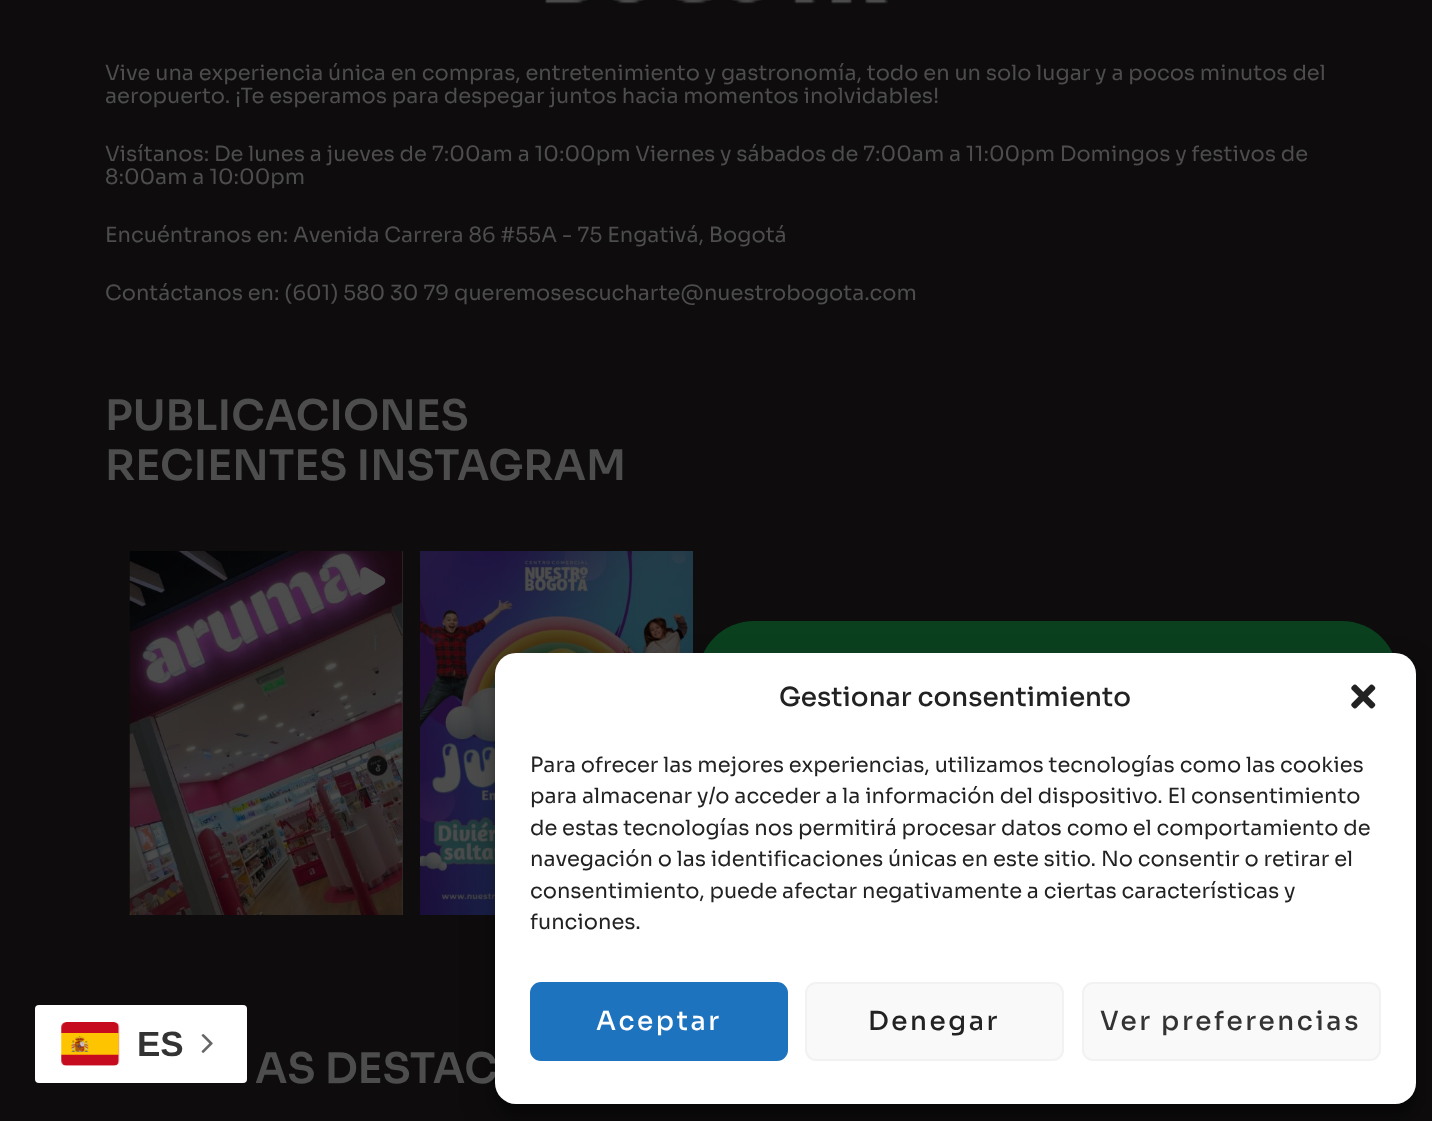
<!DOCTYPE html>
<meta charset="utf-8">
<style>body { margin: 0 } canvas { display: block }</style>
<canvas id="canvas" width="1432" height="1121"></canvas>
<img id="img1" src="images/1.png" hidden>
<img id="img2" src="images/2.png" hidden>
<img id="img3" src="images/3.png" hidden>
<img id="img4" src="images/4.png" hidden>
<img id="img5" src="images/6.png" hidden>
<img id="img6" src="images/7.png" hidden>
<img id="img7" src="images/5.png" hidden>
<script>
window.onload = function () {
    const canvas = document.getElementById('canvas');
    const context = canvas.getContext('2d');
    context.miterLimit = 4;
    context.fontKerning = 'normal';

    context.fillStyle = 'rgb(14, 12, 12)';
    context.fillRect(0, 0, 1432, 1121);
    context.drawImage(document.getElementById('img1'), 545, 0, 344, 5);
    context.fillStyle = 'rgb(46, 46, 46)';
    context.fillRect(402, 551, 1, 364);
    context.drawImage(document.getElementById('img2'), 129, 551, 274, 364);
    context.drawImage(document.getElementById('img3'), 360, 567, 26, 28);
    context.drawImage(document.getElementById('img4'), 420, 551, 273, 364);
    context.fillStyle = 'rgb(11, 64, 31)';
    context.beginPath();
    context.roundRect(698, 621, 700, 123, [56, 56, 0, 0]);
    context.fill();
    context.fillStyle = 'rgba(0, 0, 0, 0.23)';
    context.filter = 'blur(5px)';
    context.beginPath();
    context.roundRect(495, 663, 921, 452, 21);
    context.fill();
    context.filter = 'none';
    context.fillStyle = 'rgba(0, 0, 0, 0.19)';
    context.filter = 'blur(17.5px)';
    context.beginPath();
    context.roundRect(495, 670, 921, 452, 21);
    context.fill();
    context.filter = 'none';
    context.fillStyle = 'rgb(255, 255, 255)';
    context.beginPath();
    context.roundRect(35, 1005, 212, 78, 4);
    context.fill();
    context.drawImage(document.getElementById('img5'), 61, 1022, 59, 44);
    context.drawImage(document.getElementById('img6'), 201, 1034, 12, 19);
    context.font = '21px Sora';
    context.fillStyle = 'rgb(77, 77, 77)';
    context.fillText('Vive una experiencia única en compras, entretenimiento y gastronomía, todo en un solo lugar y a pocos minutos del', 105, 80);
    context.fillText('aeropuerto. ¡Te esperamos para despegar juntos hacia momentos inolvidables!', 105, 103);
    context.fillText('Visítanos: De lunes a jueves de 7:00am a 10:00pm Viernes y sábados de 7:00am a 11:00pm Domingos y festivos de', 105, 161);
    context.fillText('8:00am a 10:00pm', 105, 184);
    context.fillText('Encuéntranos en: Avenida Carrera 86 #55A - 75 Engativá, Bogotá', 105, 242);
    context.fillText('Contáctanos en: (601) 580 30 79 queremosescucharte@nuestrobogota.com', 105, 300);
    context.font = '600 42px Sora';
    context.fillText('PUBLICACIONES', 105, 430);
    context.fillText('RECIENTES INSTAGRAM', 105, 480);
    context.fillText('AS DESTAC', 255, 1083);
    context.fillStyle = 'rgb(255, 255, 255)';
    context.beginPath();
    context.roundRect(495, 653, 921, 451, 21);
    context.fill();
    context.font = '500 26.25px Sora';
    context.fillStyle = 'rgb(34, 34, 34)';
    context.fillText('Gestionar consentimiento', 779, 706);
    context.drawImage(document.getElementById('img7'), 1351, 684, 25, 25);
    context.font = '21px Sora';
    context.fillText('Para ofrecer las mejores experiencias, utilizamos tecnologías como las cookies', 530, 772);
    context.fillText('para almacenar y/o acceder a la información del dispositivo. El consentimiento', 530, 803);
    context.fillText('de estas tecnologías nos permitirá procesar datos como el comportamiento de', 530, 835);
    context.fillText('navegación o las identificaciones únicas en este sitio. No consentir o retirar el', 530, 866);
    context.fillText('consentimiento, puede afectar negativamente a ciertas características y', 530, 898);
    context.fillText('funciones.', 530, 929);
    context.fillStyle = 'rgb(30, 115, 190)';
    context.beginPath();
    context.roundRect(531, 983, 256, 77, 10);
    context.fill();
    context.strokeStyle = 'rgb(30, 115, 190)';
    context.lineWidth = 2;
    context.stroke();
    context.letterSpacing = '2.6px';
    context.font = '500 26.25px Sora';
    context.fillStyle = 'rgb(255, 255, 255)';
    context.fillText('Aceptar', 596, 1030);
    context.fillStyle = 'rgb(249, 249, 249)';
    context.beginPath();
    context.roundRect(806, 983, 257, 77, 10);
    context.fill();
    context.strokeStyle = 'rgb(242, 242, 242)';
    context.stroke();
    context.fillStyle = 'rgb(34, 34, 34)';
    context.fillText('Denegar', 868, 1030);
    context.fillStyle = 'rgb(249, 249, 249)';
    context.beginPath();
    context.roundRect(1083, 983, 297, 77, 10);
    context.fill();
    context.stroke();
    context.fillStyle = 'rgb(51, 51, 51)';
    context.fillText('Ver preferencias', 1100, 1030);
    context.letterSpacing = '0px';
    context.font = 'bold 35px Liberation Sans';
    context.fillText('ES', 137, 1056);
};
</script>
